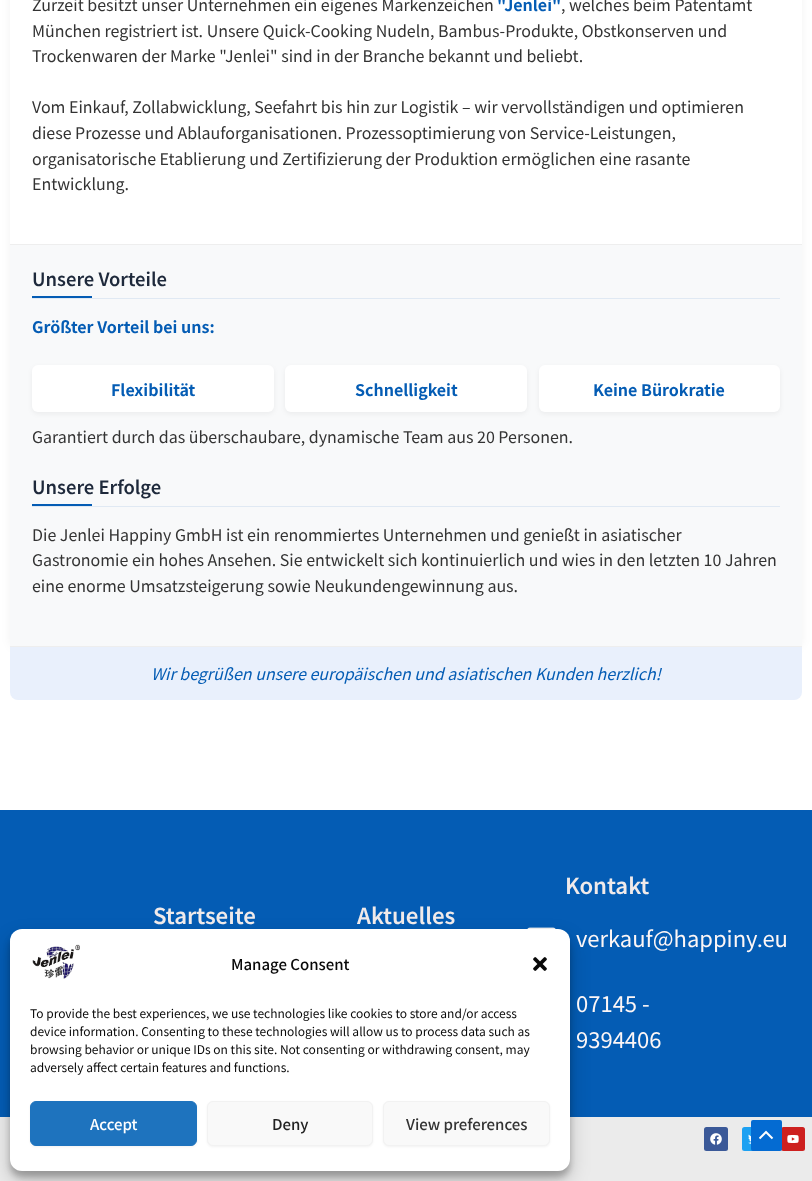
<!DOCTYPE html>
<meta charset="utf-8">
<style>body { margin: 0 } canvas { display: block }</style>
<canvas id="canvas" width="812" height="1181"></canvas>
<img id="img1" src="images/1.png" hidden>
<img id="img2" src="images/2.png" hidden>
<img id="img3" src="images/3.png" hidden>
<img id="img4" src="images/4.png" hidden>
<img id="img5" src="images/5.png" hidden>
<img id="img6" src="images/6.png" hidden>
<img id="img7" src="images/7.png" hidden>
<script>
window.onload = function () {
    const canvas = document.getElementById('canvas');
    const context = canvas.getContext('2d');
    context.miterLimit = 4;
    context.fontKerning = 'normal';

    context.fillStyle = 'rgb(255, 255, 255)';
    context.fillRect(0, 0, 812, 1181);
    context.fillStyle = 'rgba(0, 0, 0, 0.05)';
    context.filter = 'blur(5px)';
    context.beginPath();
    context.roundRect(10, -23, 792, 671, 8);
    context.fill();
    context.filter = 'none';
    context.fillStyle = 'rgb(255, 255, 255)';
    context.fillRect(10, 0, 792, 244);
    context.fillStyle = 'rgb(248, 249, 250)';
    context.fillRect(10, 245, 792, 401);
    context.fillStyle = 'rgb(238, 238, 238)';
    context.fillRect(10, 244, 792, 1);
    context.fillStyle = 'rgb(224, 233, 243)';
    context.fillRect(32, 298, 748, 1);
    context.fillStyle = 'rgb(4, 92, 180)';
    context.fillRect(32, 296, 60, 2);
    context.fillStyle = 'rgba(0, 0, 0, 0.05)';
    context.filter = 'blur(2.5px)';
    context.beginPath();
    context.roundRect(32, 367, 242, 47, 6);
    context.fill();
    context.filter = 'none';
    context.fillStyle = 'rgb(255, 255, 255)';
    context.beginPath();
    context.roundRect(32, 365, 242, 47, 6);
    context.fill();
    context.fillStyle = 'rgba(0, 0, 0, 0.05)';
    context.filter = 'blur(2.5px)';
    context.beginPath();
    context.roundRect(285, 367, 242, 47, 6);
    context.fill();
    context.filter = 'none';
    context.fillStyle = 'rgb(255, 255, 255)';
    context.beginPath();
    context.roundRect(285, 365, 242, 47, 6);
    context.fill();
    context.fillStyle = 'rgba(0, 0, 0, 0.05)';
    context.filter = 'blur(2.5px)';
    context.beginPath();
    context.roundRect(539, 367, 241, 47, 6);
    context.fill();
    context.filter = 'none';
    context.fillStyle = 'rgb(255, 255, 255)';
    context.beginPath();
    context.roundRect(539, 365, 241, 47, 6);
    context.fill();
    context.fillStyle = 'rgb(224, 233, 243)';
    context.fillRect(32, 506, 748, 1);
    context.fillStyle = 'rgb(4, 92, 180)';
    context.fillRect(32, 504, 60, 2);
    context.fillStyle = 'rgb(233, 240, 252)';
    context.beginPath();
    context.roundRect(10, 646, 792, 54, [0, 0, 8, 8]);
    context.fill();
    context.fillStyle = 'rgb(238, 238, 238)';
    context.fillRect(10, 646, 792, 1);
    context.fillStyle = 'rgb(4, 92, 180)';
    context.fillRect(0, 810, 812, 307);
    context.drawImage(document.getElementById('img1'), 527, 927, 29, 2);
    context.fillStyle = 'rgb(235, 235, 235)';
    context.fillRect(0, 1117, 812, 64);
    context.fillStyle = 'rgb(59, 89, 152)';
    context.beginPath();
    context.roundRect(704, 1127, 24, 24, 2.5);
    context.fill();
    context.drawImage(document.getElementById('img2'), 710, 1133, 12, 12);
    context.fillStyle = 'rgb(29, 161, 242)';
    context.beginPath();
    context.roundRect(742, 1127, 24, 24, 2.5);
    context.fill();
    context.drawImage(document.getElementById('img3'), 748, 1134, 3, 10);
    context.fillStyle = 'rgb(205, 32, 31)';
    context.beginPath();
    context.roundRect(781, 1127, 24, 24, 2.5);
    context.fill();
    context.drawImage(document.getElementById('img4'), 787, 1135, 12, 8);
    context.fillStyle = 'rgba(0, 0, 0, 0.23)';
    context.filter = 'blur(3px)';
    context.beginPath();
    context.roundRect(10, 935, 560, 242, 12);
    context.fill();
    context.filter = 'none';
    context.fillStyle = 'rgba(0, 0, 0, 0.19)';
    context.filter = 'blur(10px)';
    context.beginPath();
    context.roundRect(10, 939, 560, 242, 12);
    context.fill();
    context.filter = 'none';
    context.fillStyle = 'rgb(255, 255, 255)';
    context.beginPath();
    context.roundRect(10, 929, 560, 242, 12);
    context.fill();
    context.drawImage(document.getElementById('img5'), 32, 944, 48, 35);
    context.drawImage(document.getElementById('img6'), 533, 957, 14, 14);
    context.fillStyle = 'rgba(0, 0, 0, 0.05)';
    context.filter = 'blur(1px)';
    context.beginPath();
    context.roundRect(30, 1102, 167, 45, 6);
    context.fill();
    context.filter = 'none';
    context.fillStyle = 'rgb(30, 115, 190)';
    context.beginPath();
    context.roundRect(30.5, 1101.5, 166, 44, 5.5);
    context.fill();
    context.strokeStyle = 'rgb(30, 115, 190)';
    context.stroke();
    context.fillStyle = 'rgba(0, 0, 0, 0.05)';
    context.filter = 'blur(1px)';
    context.beginPath();
    context.roundRect(207, 1102, 166, 45, 6);
    context.fill();
    context.filter = 'none';
    context.fillStyle = 'rgb(249, 249, 249)';
    context.beginPath();
    context.roundRect(207.5, 1101.5, 165, 44, 5.5);
    context.fill();
    context.strokeStyle = 'rgb(242, 242, 242)';
    context.stroke();
    context.fillStyle = 'rgba(0, 0, 0, 0.05)';
    context.filter = 'blur(1px)';
    context.beginPath();
    context.roundRect(383, 1102, 167, 45, 6);
    context.fill();
    context.filter = 'none';
    context.fillStyle = 'rgb(249, 249, 249)';
    context.beginPath();
    context.roundRect(383.5, 1101.5, 166, 44, 5.5);
    context.fill();
    context.stroke();
    context.fillStyle = 'rgb(4, 107, 210)';
    context.beginPath();
    context.roundRect(751, 1120, 31, 31, 2);
    context.fill();
    context.drawImage(document.getElementById('img7'), 759, 1130, 15, 10);
    context.font = '16px Noto Sans SC';
    context.fillStyle = 'rgb(51, 51, 51)';
    context.fillText('Zurzeit besitzt unser Unternehmen ein eigenes Markenzeichen', 32, 11);
    context.font = 'bold 16px Noto Sans SC';
    context.fillStyle = 'rgb(4, 92, 180)';
    context.fillText('"Jenlei"', 497, 11);
    context.font = '16px Noto Sans SC';
    context.fillStyle = 'rgb(51, 51, 51)';
    context.fillText(', welches beim Patentamt', 561, 11);
    context.fillText('München registriert ist. Unsere Quick-Cooking Nudeln, Bambus-Produkte, Obstkonserven und', 32, 37);
    context.fillText('Trockenwaren der Marke "Jenlei" sind in der Branche bekannt und beliebt.', 32, 62);
    context.fillText('Vom Einkauf, Zollabwicklung, Seefahrt bis hin zur Logistik – wir vervollständigen und optimieren', 32, 113);
    context.fillText('diese Prozesse und Ablauforganisationen. Prozessoptimierung von Service-Leistungen,', 32, 139);
    context.fillText('organisatorische Etablierung und Zertifizierung der Produktion ermöglichen eine rasante', 32, 165);
    context.fillText('Entwicklung.', 32, 190);
    context.font = '600 18.25px Noto Sans SC';
    context.fillStyle = 'rgb(30, 41, 59)';
    context.fillText('Unsere Vorteile', 32, 286);
    context.font = 'bold 16px Noto Sans SC';
    context.fillStyle = 'rgb(4, 92, 180)';
    context.fillText('Größter Vorteil bei uns:', 32, 333);
    context.fillText('Flexibilität', 111, 396);
    context.fillText('Schnelligkeit', 355, 396);
    context.fillText('Keine Bürokratie', 593, 396);
    context.font = '16px Noto Sans SC';
    context.fillStyle = 'rgb(51, 51, 51)';
    context.fillText('Garantiert durch das überschaubare, dynamische Team aus 20 Personen.', 32, 443);
    context.font = '600 18.25px Noto Sans SC';
    context.fillStyle = 'rgb(30, 41, 59)';
    context.fillText('Unsere Erfolge', 32, 494);
    context.font = '16px Noto Sans SC';
    context.fillStyle = 'rgb(51, 51, 51)';
    context.fillText('Die Jenlei Happiny GmbH ist ein renommiertes Unternehmen und genießt in asiatischer', 32, 541);
    context.fillText('Gastronomie ein hohes Ansehen. Sie entwickelt sich kontinuierlich und wies in den letzten 10 Jahren', 32, 566);
    context.fillText('eine enorme Umsatzsteigerung sowie Neukundengewinnung aus.', 32, 592);
    context.font = 'italic 16px Noto Sans SC';
    context.fillStyle = 'rgb(4, 92, 180)';
    context.fillText('Wir begrüßen unsere europäischen und asiatischen Kunden herzlich!', 151, 680);
    context.font = '600 22px Noto Sans SC';
    context.fillStyle = 'rgb(240, 234, 234)';
    context.fillText('Startseite', 153, 924);
    context.fillText('Aktuelles', 357, 924);
    context.fillText('Kontakt', 565, 894);
    context.font = '22px Noto Sans SC';
    context.fillStyle = 'rgb(253, 246, 246)';
    context.fillText('verkauf@happiny.eu', 576, 947);
    context.fillText('07145 -', 576, 1012);
    context.fillText('9394406', 576, 1048);
    context.font = '500 15px Noto Sans SC';
    context.fillStyle = 'rgb(8, 8, 8)';
    context.fillText('Manage Consent', 231, 970);
    context.font = '12px Noto Sans SC';
    context.fillText('To provide the best experiences, we use technologies like cookies to store and/or access', 30, 1018);
    context.fillText('device information. Consenting to these technologies will allow us to process data such as', 30, 1036);
    context.fillText('browsing behavior or unique IDs on this site. Not consenting or withdrawing consent, may', 30, 1054);
    context.fillText('adversely affect certain features and functions.', 30, 1072);
    context.font = '500 15px Noto Sans SC';
    context.fillStyle = 'rgb(255, 255, 255)';
    context.fillText('Accept', 90, 1130);
    context.fillStyle = 'rgb(34, 34, 34)';
    context.fillText('Deny', 272, 1130);
    context.fillStyle = 'rgb(51, 51, 51)';
    context.fillText('View preferences', 406, 1130);
};
</script>
